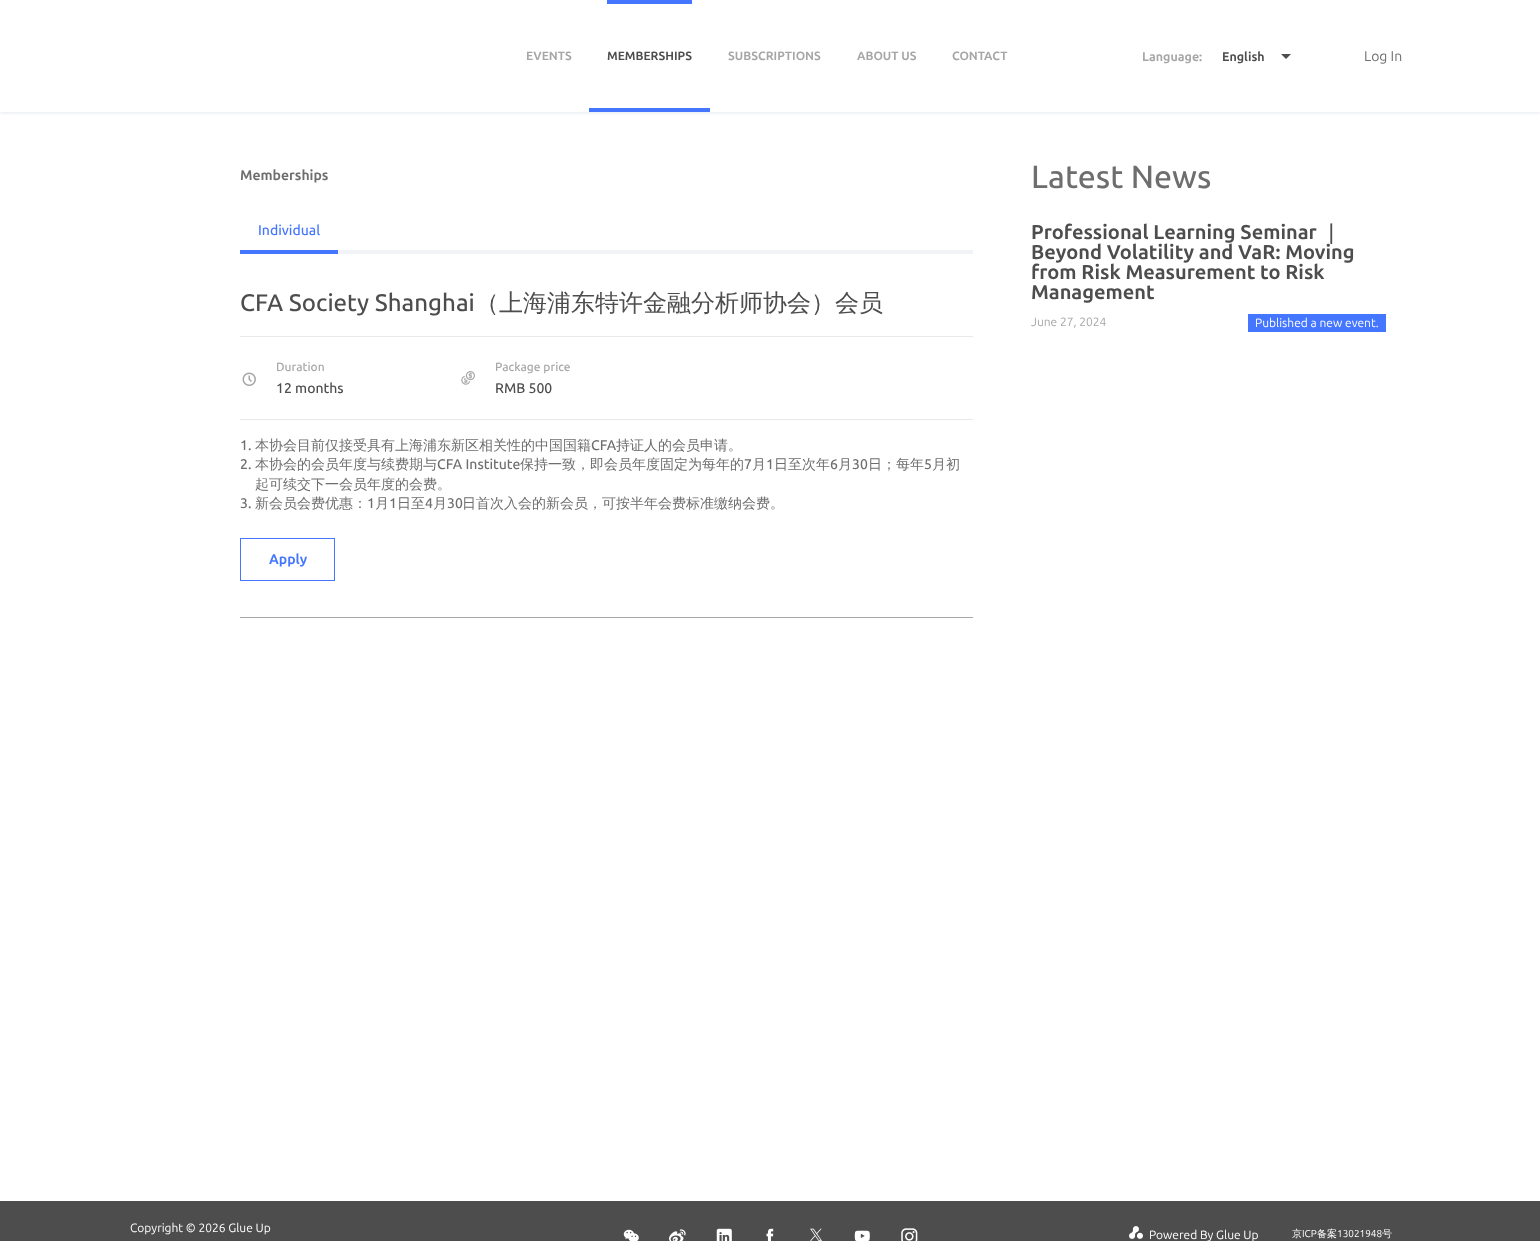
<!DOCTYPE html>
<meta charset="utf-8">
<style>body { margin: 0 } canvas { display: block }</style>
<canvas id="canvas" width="1540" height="1241"></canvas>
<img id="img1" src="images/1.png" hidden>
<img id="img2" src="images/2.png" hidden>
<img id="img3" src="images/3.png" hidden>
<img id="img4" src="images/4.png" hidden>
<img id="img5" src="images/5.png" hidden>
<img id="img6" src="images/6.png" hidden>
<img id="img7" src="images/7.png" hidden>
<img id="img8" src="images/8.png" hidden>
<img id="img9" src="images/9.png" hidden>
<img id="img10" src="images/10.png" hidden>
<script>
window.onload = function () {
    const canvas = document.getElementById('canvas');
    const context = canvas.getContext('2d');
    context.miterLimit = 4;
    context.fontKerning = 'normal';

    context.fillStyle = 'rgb(255, 255, 255)';
    context.fillRect(0, 0, 1540, 1241);
    context.save();
    context.beginPath();
    context.rect(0, 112, 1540, 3);
    context.clip();
    context.fillStyle = 'rgba(0, 28, 108, 0.1)';
    context.filter = 'blur(2px)';
    context.beginPath();
    context.rect(0, 1, 1540, 112);
    context.fill();
    context.filter = 'none';
    context.restore();
    context.fillStyle = 'rgb(68, 118, 255)';
    context.fillRect(589, 108, 121, 4);
    context.fillRect(607, 0, 85, 4);
    context.fillStyle = 'rgb(77, 77, 77)';
    context.beginPath();
    context.moveTo(1281, 54);
    context.lineTo(1291, 54);
    context.lineTo(1286, 59);
    context.closePath();
    context.fill();
    context.fillStyle = 'rgb(242, 243, 247)';
    context.fillRect(338, 250, 635, 4);
    context.fillStyle = 'rgb(68, 118, 255)';
    context.fillRect(240, 250, 98, 4);
    context.fillStyle = 'rgb(166, 166, 166)';
    context.fillRect(240, 617, 733, 1);
    context.fillStyle = 'rgb(232, 232, 232)';
    context.fillRect(240, 336, 733, 1);
    context.fillRect(240, 419, 733, 1);
    context.drawImage(document.getElementById('img1'), 242, 372, 14, 14);
    context.drawImage(document.getElementById('img2'), 461, 371, 14, 14);
    context.strokeStyle = 'rgb(68, 118, 255)';
    context.strokeRect(240.5, 538.5, 94, 42);
    context.fillStyle = 'rgb(68, 118, 255)';
    context.fillRect(1248, 314, 138, 18);
    context.fillStyle = 'rgb(77, 77, 77)';
    context.fillRect(0, 1201, 1540, 40);
    context.drawImage(document.getElementById('img3'), 623, 1229, 16, 12);
    context.drawImage(document.getElementById('img4'), 669, 1229, 17, 12);
    context.drawImage(document.getElementById('img5'), 716, 1228, 16, 13);
    context.drawImage(document.getElementById('img6'), 766, 1228, 8, 13);
    context.drawImage(document.getElementById('img7'), 810, 1228, 12, 13);
    context.drawImage(document.getElementById('img8'), 854, 1230, 16, 11);
    context.drawImage(document.getElementById('img9'), 901, 1228, 17, 13);
    context.drawImage(document.getElementById('img10'), 1129, 1226, 14, 13);
    context.font = 'bold 12px Ubuntu';
    context.fillStyle = 'rgb(166, 166, 166)';
    context.fillText('EVENTS', 526, 60);
    context.fillStyle = 'rgb(77, 77, 77)';
    context.fillText('MEMBERSHIPS', 607, 60);
    context.fillStyle = 'rgb(166, 166, 166)';
    context.fillText('SUBSCRIPTIONS', 728, 60);
    context.fillText('ABOUT US', 857, 60);
    context.fillText('CONTACT', 952, 60);
    context.font = 'bold 12.5px Ubuntu';
    context.fillText('Language:', 1142, 61);
    context.fillStyle = 'rgb(77, 77, 77)';
    context.fillText('English', 1222, 61);
    context.font = '14px Ubuntu';
    context.fillStyle = 'rgb(110, 110, 110)';
    context.fillText('Log In', 1364, 61);
    context.font = 'bold 14px Ubuntu';
    context.fillText('Memberships', 240, 180);
    context.font = '500 14px Ubuntu';
    context.fillStyle = 'rgb(68, 118, 255)';
    context.fillText('Individual', 258, 235);
    context.font = '500 24px Ubuntu';
    context.fillStyle = 'rgb(77, 77, 77)';
    context.fillText('CFA Society Shanghai', 240, 311);
    context.font = '500 24px WenQuanYi Zen Hei';
    context.fillText('（上海浦东特许金融分析师协会）会员', 475, 311);
    context.font = '500 12px Ubuntu';
    context.fillStyle = 'rgb(166, 166, 166)';
    context.fillText('Duration', 276, 371);
    context.font = '500 14px Ubuntu';
    context.fillStyle = 'rgb(77, 77, 77)';
    context.fillText('12 months', 276, 393);
    context.font = '500 12px Ubuntu';
    context.fillStyle = 'rgb(166, 166, 166)';
    context.fillText('Package price', 495, 371);
    context.font = '500 14px Ubuntu';
    context.fillStyle = 'rgb(77, 77, 77)';
    context.fillText('RMB 500', 495, 393);
    context.fillStyle = 'rgb(110, 110, 110)';
    context.fillText('1.', 240, 450);
    context.font = '500 14px WenQuanYi Zen Hei';
    context.fillText('本协会目前仅接受具有上海浦东新区相关性的中国国籍', 255, 450);
    context.font = '500 14px Ubuntu';
    context.fillText('CFA', 591, 450);
    context.font = '500 14px WenQuanYi Zen Hei';
    context.fillText('持证人的会员申请。', 616, 450);
    context.font = '500 14px Ubuntu';
    context.fillText('2.', 240, 469);
    context.font = '500 14px WenQuanYi Zen Hei';
    context.fillText('本协会的会员年度与续费期与', 255, 469);
    context.font = '500 14px Ubuntu';
    context.fillText('CFA Institute', 437, 469);
    context.font = '500 14px WenQuanYi Zen Hei';
    context.fillText('保持一致，即会员年度固定为每年的', 520, 469);
    context.font = '500 14px Ubuntu';
    context.fillText('7', 744, 469);
    context.font = '500 14px WenQuanYi Zen Hei';
    context.fillText('月', 752, 469);
    context.font = '500 14px Ubuntu';
    context.fillText('1', 766, 469);
    context.font = '500 14px WenQuanYi Zen Hei';
    context.fillText('日至次年', 774, 469);
    context.font = '500 14px Ubuntu';
    context.fillText('6', 830, 469);
    context.font = '500 14px WenQuanYi Zen Hei';
    context.fillText('月', 838, 469);
    context.font = '500 14px Ubuntu';
    context.fillText('30', 852, 469);
    context.font = '500 14px WenQuanYi Zen Hei';
    context.fillText('日；每年', 868, 469);
    context.font = '500 14px Ubuntu';
    context.fillText('5', 924, 469);
    context.font = '500 14px WenQuanYi Zen Hei';
    context.fillText('月初', 932, 469);
    context.fillText('起可续交下一会员年度的会费。', 255, 489);
    context.font = '500 14px Ubuntu';
    context.fillText('3.', 240, 508);
    context.font = '500 14px WenQuanYi Zen Hei';
    context.fillText('新会员会费优惠：', 255, 508);
    context.font = '500 14px Ubuntu';
    context.fillText('1', 367, 508);
    context.font = '500 14px WenQuanYi Zen Hei';
    context.fillText('月', 375, 508);
    context.font = '500 14px Ubuntu';
    context.fillText('1', 389, 508);
    context.font = '500 14px WenQuanYi Zen Hei';
    context.fillText('日至', 397, 508);
    context.font = '500 14px Ubuntu';
    context.fillText('4', 425, 508);
    context.font = '500 14px WenQuanYi Zen Hei';
    context.fillText('月', 433, 508);
    context.font = '500 14px Ubuntu';
    context.fillText('30', 447, 508);
    context.font = '500 14px WenQuanYi Zen Hei';
    context.fillText('日首次入会的新会员，可按半年会费标准缴纳会费。', 462, 508);
    context.font = 'bold 14px Ubuntu';
    context.fillStyle = 'rgb(68, 118, 255)';
    context.fillText('Apply', 269, 564);
    context.font = '500 32px Ubuntu';
    context.fillStyle = 'rgb(110, 110, 110)';
    context.fillText('Latest News', 1031, 188);
    context.font = 'bold 20px Ubuntu';
    context.fillStyle = 'rgb(77, 77, 77)';
    context.fillText('Professional Learning Seminar', 1031, 239);
    context.font = 'bold 20px WenQuanYi Zen Hei';
    context.fillText('｜', 1321, 239);
    context.font = 'bold 20px Ubuntu';
    context.fillText('Beyond Volatility and VaR: Moving', 1031, 259);
    context.fillText('from Risk Measurement to Risk', 1031, 279);
    context.fillText('Management', 1031, 299);
    context.font = '12px Ubuntu';
    context.fillStyle = 'rgb(166, 166, 166)';
    context.fillText('June 27, 2024', 1031, 326);
    context.fillStyle = 'rgb(255, 255, 255)';
    context.fillText('Published a new event.', 1255, 327);
    context.fillText('Copyright © 2026 Glue Up', 130, 1232);
    context.fillText('Powered By Glue Up', 1149, 1239);
    context.font = '500 10px WenQuanYi Zen Hei';
    context.fillText('京', 1292, 1237);
    context.font = '10px Ubuntu';
    context.fillText('ICP', 1302, 1237);
    context.font = '500 10px WenQuanYi Zen Hei';
    context.fillText('备案', 1317, 1237);
    context.font = '10px Ubuntu';
    context.fillText('13021948', 1337, 1237);
    context.font = '500 10px WenQuanYi Zen Hei';
    context.fillText('号', 1382, 1237);
};
</script>
